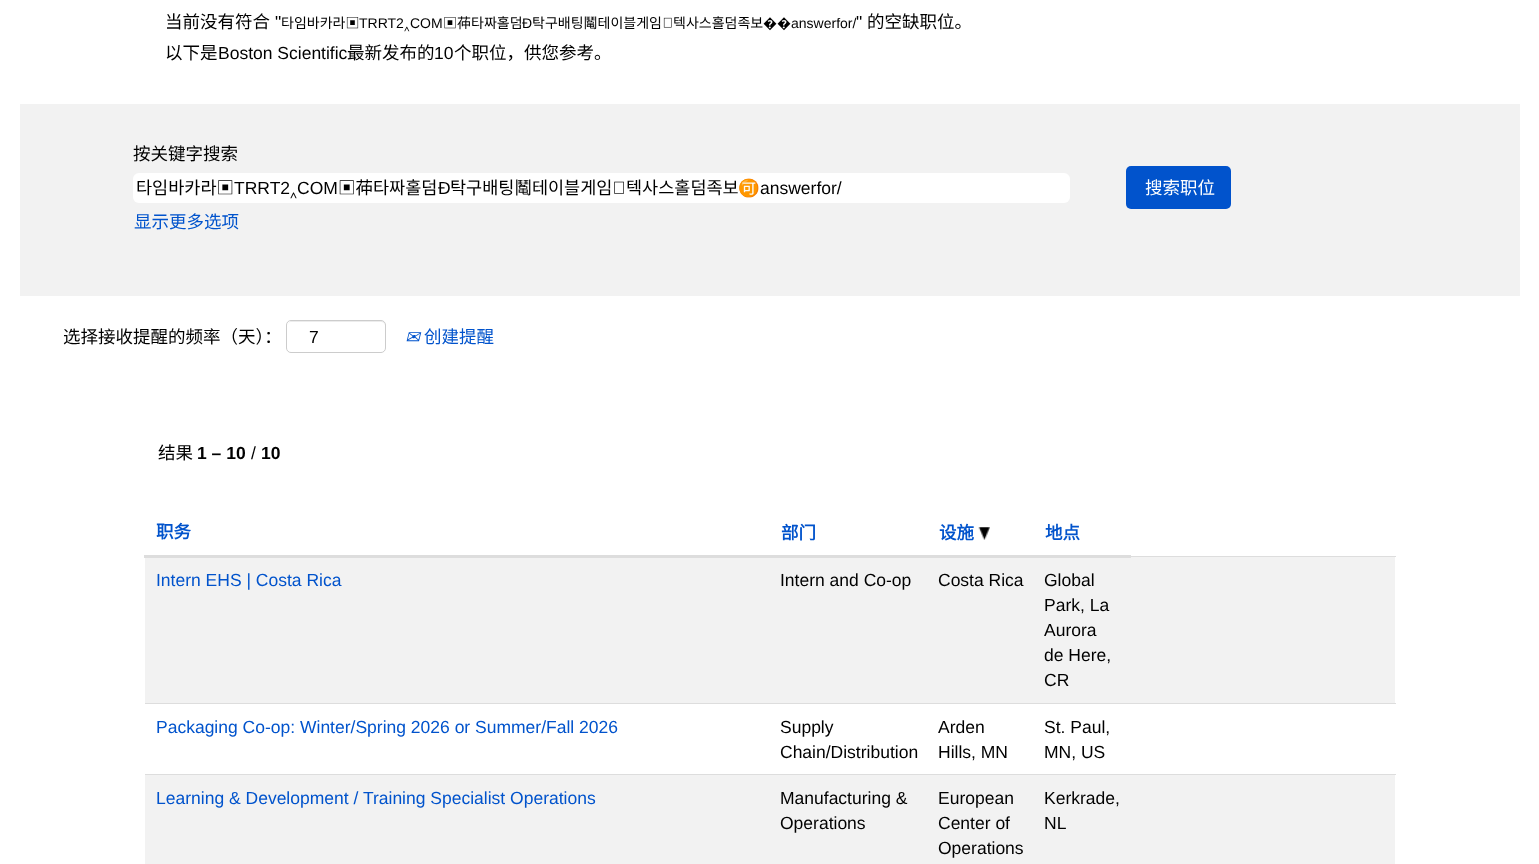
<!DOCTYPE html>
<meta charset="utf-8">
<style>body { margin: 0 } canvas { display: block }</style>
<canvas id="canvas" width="1539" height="864"></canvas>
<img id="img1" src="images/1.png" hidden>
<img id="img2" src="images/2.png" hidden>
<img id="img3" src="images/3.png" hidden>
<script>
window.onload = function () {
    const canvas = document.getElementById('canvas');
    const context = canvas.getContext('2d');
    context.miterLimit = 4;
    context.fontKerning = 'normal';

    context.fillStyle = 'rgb(255, 255, 255)';
    context.fillRect(0, 0, 1539, 864);
    context.drawImage(document.getElementById('img1'), 663, 17, 9, 11);
    context.fillStyle = 'rgb(242, 242, 242)';
    context.fillRect(20, 104, 1500, 192);
    context.fillStyle = 'rgb(255, 255, 255)';
    context.beginPath();
    context.roundRect(133, 173, 937, 30, 6);
    context.fill();
    context.drawImage(document.getElementById('img2'), 614, 181, 10, 13);
    context.fillStyle = 'rgb(1, 83, 204)';
    context.beginPath();
    context.roundRect(1126, 166, 105, 43, 5);
    context.fill();
    context.fillStyle = 'rgb(236, 236, 236)';
    context.beginPath();
    context.moveTo(291, 322);
    context.lineTo(381, 322);
    context.bezierCurveTo(383, 322, 385, 324, 385, 326);
    context.bezierCurveTo(385, 317, 371, 321, 366, 321);
    context.lineTo(307, 321);
    context.bezierCurveTo(302, 321, 288, 317, 288, 326);
    context.bezierCurveTo(288, 324, 289, 322, 291, 322);
    context.closePath();
    context.fill();
    context.beginPath();
    context.roundRect(286.5, 320.5, 99, 32, 4.5);
    context.strokeStyle = 'rgb(204, 204, 204)';
    context.stroke();
    context.drawImage(document.getElementById('img3'), 978, 527, 12, 13);
    context.fillStyle = 'rgb(242, 242, 242)';
    context.fillRect(145, 557, 1250, 146);
    context.fillStyle = 'rgb(221, 221, 221)';
    context.fillRect(1129, 556, 267, 1);
    context.fillRect(144, 555, 987, 3);
    context.fillRect(145, 703, 1251, 1);
    context.fillStyle = 'rgb(242, 242, 242)';
    context.fillRect(145, 775, 1250, 89);
    context.fillStyle = 'rgb(221, 221, 221)';
    context.fillRect(145, 774, 1251, 1);
    context.font = '17.5px Noto Sans CJK SC';
    context.fillStyle = 'rgb(0, 0, 0)';
    context.fillText('当前没有符合', 165, 28);
    context.font = '17.5px Liberation Sans';
    context.fillText('"', 275, 28);
    context.font = '14px Noto Sans CJK SC';
    context.fillText('타임바카라▣', 281, 28);
    context.font = '14px Liberation Sans';
    context.fillText('TRRT2', 359, 28);
    context.fillText('COM', 410, 28);
    context.font = '14px Noto Sans CJK SC';
    context.fillText('▣茽타짜홀덤', 443, 28);
    context.font = '14px Liberation Sans';
    context.fillText('Đ', 522, 28);
    context.font = '14px Noto Sans CJK SC';
    context.fillText('탁구배팅䰗테이블게임', 532, 28);
    context.fillText('텍사스홀덤족보', 673, 28);
    context.font = '14px Noto Sans';
    context.fillText('��', 763, 28);
    context.font = '14px Liberation Sans';
    context.fillText('answerfor/', 791, 28);
    context.font = '17.5px Liberation Sans';
    context.fillText('"', 856, 28);
    context.font = '17.5px Noto Sans CJK SC';
    context.fillText('的空缺职位。', 867, 28);
    context.font = '14px Noto Sans';
    context.fillText('‸', 404, 28);
    context.font = '17.5px Noto Sans CJK SC';
    context.fillText('以下是', 165, 59);
    context.font = '17.5px Liberation Sans';
    context.fillText('Boston Scientific', 218, 59);
    context.font = '17.5px Noto Sans CJK SC';
    context.fillText('最新发布的', 347, 59);
    context.font = '17.5px Liberation Sans';
    context.fillText('10', 434, 59);
    context.font = '17.5px Noto Sans CJK SC';
    context.fillText('个职位，供您参考。', 454, 59);
    context.fillText('按关键字搜索', 133, 160);
    context.fillText('타임바카라▣', 136, 194);
    context.font = '17.5px Liberation Sans';
    context.fillText('TRRT2', 234, 194);
    context.font = '17.5px Noto Sans';
    context.fillText('‸', 290, 194);
    context.font = '17.5px Liberation Sans';
    context.fillText('COM', 297, 194);
    context.font = '17.5px Noto Sans CJK SC';
    context.fillText('▣茽타짜홀덤', 338, 194);
    context.font = '17.5px Liberation Sans';
    context.fillText('Đ', 438, 194);
    context.font = '17.5px Noto Sans CJK SC';
    context.fillText('탁구배팅䰗테이블게임', 450, 194);
    context.fillText('텍사스홀덤족보', 626, 194);
    context.font = '17.5px Noto Color Emoji';
    context.fillText('🉑', 738, 194);
    context.font = '17.5px Liberation Sans';
    context.fillText('answerfor/', 760, 194);
    context.font = '17.5px Noto Sans CJK SC';
    context.fillStyle = 'rgb(1, 83, 204)';
    context.fillText('显示更多选项', 134, 228);
    context.fillStyle = 'rgb(255, 255, 255)';
    context.fillText('搜索职位', 1145, 194);
    context.fillStyle = 'rgb(0, 0, 0)';
    context.fillText('选择接收提醒的频率（天）：', 63, 343);
    context.font = '17.5px Liberation Sans';
    context.fillText('7', 309, 343);
    context.font = 'italic 17.5px DejaVu Sans';
    context.fillStyle = 'rgb(1, 83, 204)';
    context.fillText('✉', 405, 343);
    context.font = '17.5px Noto Sans CJK SC';
    context.fillText('创建提醒', 424, 343);
    context.fillStyle = 'rgb(0, 0, 0)';
    context.fillText('结果', 158, 459);
    context.font = 'bold 17.5px Liberation Sans';
    context.fillText('1 – 10', 197, 459);
    context.font = '17.5px Liberation Sans';
    context.fillText('/', 251, 459);
    context.font = 'bold 17.5px Liberation Sans';
    context.fillText('10', 261, 459);
    context.font = 'bold 17.5px Noto Sans CJK SC';
    context.fillStyle = 'rgb(1, 83, 204)';
    context.fillText('职务', 156, 538);
    context.fillText('部门', 781, 539);
    context.fillText('设施', 939, 539);
    context.fillText('地点', 1045, 539);
    context.font = '17.5px Liberation Sans';
    context.fillText('Intern EHS | Costa Rica', 156, 586);
    context.fillStyle = 'rgb(0, 0, 0)';
    context.fillText('Intern and Co-op', 780, 586);
    context.fillText('Costa Rica', 938, 586);
    context.fillText('Global', 1044, 586);
    context.fillText('Park, La', 1044, 611);
    context.fillText('Aurora', 1044, 636);
    context.fillText('de Here,', 1044, 661);
    context.fillText('CR', 1044, 686);
    context.fillStyle = 'rgb(1, 83, 204)';
    context.fillText('Packaging Co-op: Winter/Spring 2026 or Summer/Fall 2026', 156, 733);
    context.fillStyle = 'rgb(0, 0, 0)';
    context.fillText('Supply', 780, 733);
    context.fillText('Chain/Distribution', 780, 758);
    context.fillText('Arden', 938, 733);
    context.fillText('Hills, MN', 938, 758);
    context.fillText('St. Paul,', 1044, 733);
    context.fillText('MN, US', 1044, 758);
    context.fillStyle = 'rgb(1, 83, 204)';
    context.fillText('Learning & Development / Training Specialist Operations', 156, 804);
    context.fillStyle = 'rgb(0, 0, 0)';
    context.fillText('Manufacturing &', 780, 804);
    context.fillText('Operations', 780, 829);
    context.fillText('European', 938, 804);
    context.fillText('Center of', 938, 829);
    context.fillText('Operations', 938, 854);
    context.fillText('Kerkrade,', 1044, 804);
    context.fillText('NL', 1044, 829);
};
</script>
